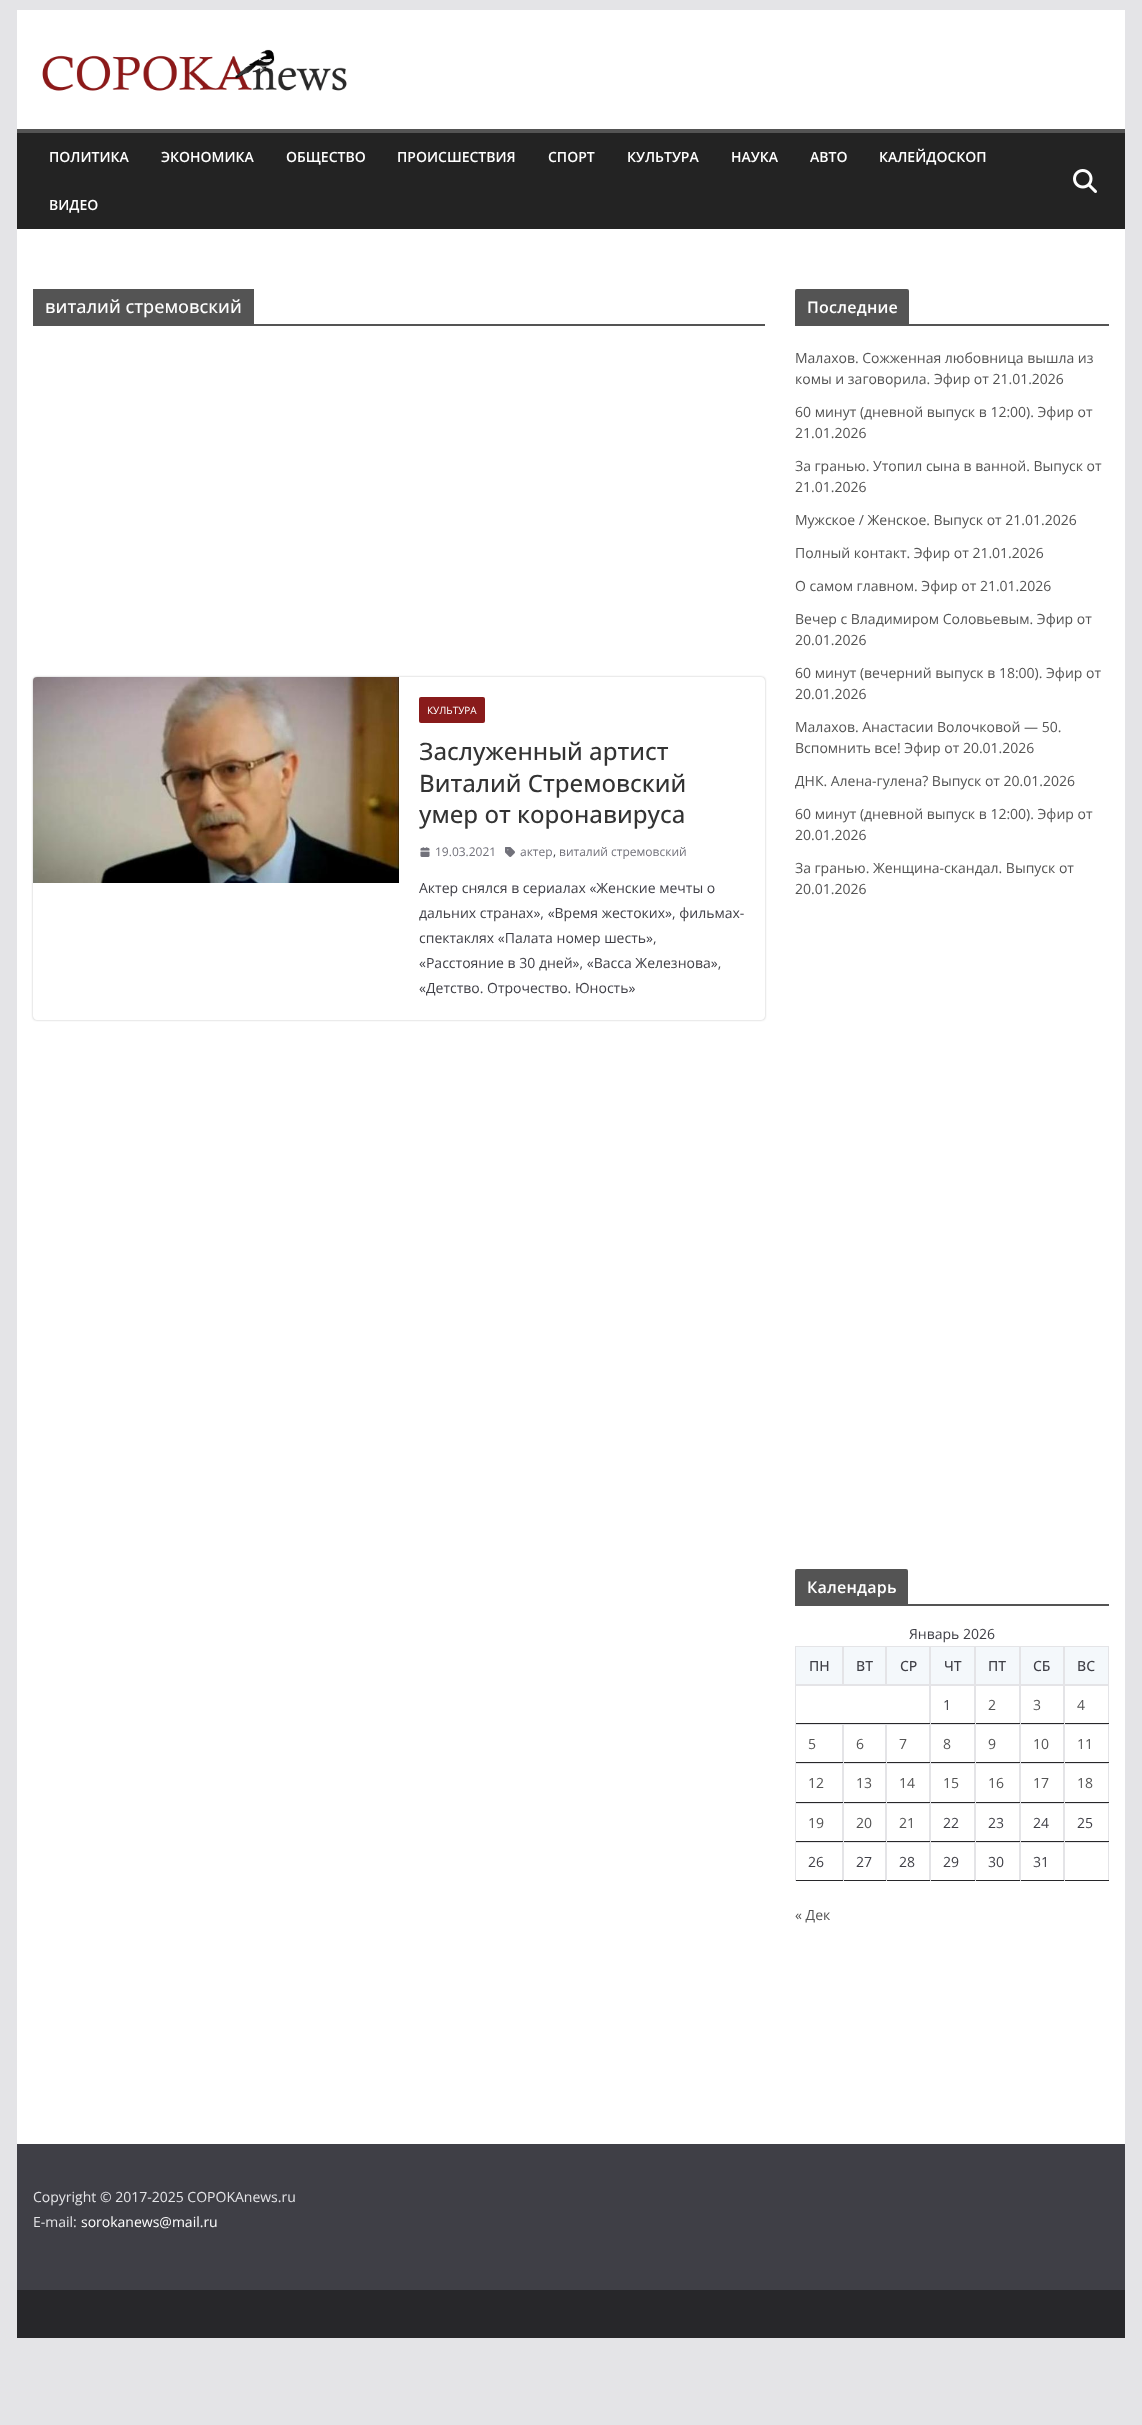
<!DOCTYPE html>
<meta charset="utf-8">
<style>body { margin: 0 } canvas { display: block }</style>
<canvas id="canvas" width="1142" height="2425"></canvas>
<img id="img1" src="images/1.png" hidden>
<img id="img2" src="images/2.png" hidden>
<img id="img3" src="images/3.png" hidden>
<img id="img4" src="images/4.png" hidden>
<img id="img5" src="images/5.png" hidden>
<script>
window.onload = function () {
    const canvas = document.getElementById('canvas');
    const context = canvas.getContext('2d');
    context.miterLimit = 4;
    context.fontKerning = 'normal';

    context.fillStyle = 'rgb(228, 228, 231)';
    context.fillRect(0, 0, 1142, 2425);
    context.fillStyle = 'rgb(255, 255, 255)';
    context.fillRect(17, 10, 1108, 119);
    context.drawImage(document.getElementById('img1'), 42, 49, 305, 42);
    context.fillStyle = 'rgb(35, 35, 35)';
    context.fillRect(17, 133, 1108, 96);
    context.fillStyle = 'rgb(84, 84, 84)';
    context.fillRect(17, 129, 1108, 4);
    context.drawImage(document.getElementById('img2'), 1073, 169, 24, 24);
    context.fillStyle = 'rgb(255, 255, 255)';
    context.fillRect(17, 229, 1108, 1915);
    context.fillStyle = 'rgb(84, 84, 84)';
    context.fillRect(33, 324, 732, 2);
    context.fillRect(33, 289, 221, 35);
    context.save();
    context.beginPath();
    context.moveTo(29, 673);
    context.lineTo(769, 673);
    context.lineTo(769, 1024);
    context.lineTo(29, 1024);
    context.closePath();
    context.moveTo(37, 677);
    context.lineTo(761, 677);
    context.bezierCurveTo(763, 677, 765, 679, 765, 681);
    context.lineTo(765, 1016);
    context.bezierCurveTo(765, 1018, 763, 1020, 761, 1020);
    context.lineTo(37, 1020);
    context.bezierCurveTo(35, 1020, 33, 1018, 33, 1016);
    context.lineTo(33, 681);
    context.bezierCurveTo(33, 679, 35, 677, 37, 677);
    context.closePath();
    context.clip('evenodd');
    context.fillStyle = 'rgba(0, 0, 0, 0.24)';
    context.filter = 'blur(1px)';
    context.beginPath();
    context.roundRect(33, 677, 732, 343, 4);
    context.fill();
    context.filter = 'none';
    context.restore();
    context.drawImage(document.getElementById('img3'), 33, 677, 366, 206);
    context.fillStyle = 'rgb(137, 27, 27)';
    context.beginPath();
    context.roundRect(419, 697, 66, 26, 2);
    context.fill();
    context.drawImage(document.getElementById('img4'), 420, 847, 10, 10);
    context.drawImage(document.getElementById('img5'), 505, 847, 10, 10);
    context.fillStyle = 'rgb(84, 84, 84)';
    context.fillRect(795, 324, 314, 2);
    context.beginPath();
    context.roundRect(795, 289, 114, 35, [2, 2, 0, 0]);
    context.fill();
    context.fillRect(795, 1604, 314, 2);
    context.beginPath();
    context.roundRect(795, 1569, 113, 35, [2, 2, 0, 0]);
    context.fill();
    context.fillStyle = 'rgb(244, 248, 251)';
    context.fillRect(796, 1647, 312, 37);
    context.strokeStyle = 'rgb(228, 228, 231)';
    context.strokeRect(795.5, 1646.5, 47, 38);
    context.strokeRect(843.5, 1646.5, 42, 38);
    context.strokeRect(886.5, 1646.5, 43, 38);
    context.strokeRect(930.5, 1646.5, 44, 38);
    context.strokeRect(975.5, 1646.5, 44, 38);
    context.strokeRect(1020.5, 1646.5, 43, 38);
    context.strokeRect(1064.5, 1646.5, 44, 38);
    context.fillStyle = 'rgb(228, 228, 231)';
    context.fillRect(795, 1685, 314, 1);
    context.fillRect(929, 1685, 1, 39);
    context.fillStyle = 'rgb(39, 39, 42)';
    context.fillRect(795, 1723, 135, 1);
    context.fillStyle = 'rgb(228, 228, 231)';
    context.fillRect(795, 1685, 1, 39);
    context.fillRect(974, 1685, 1, 39);
    context.fillStyle = 'rgb(39, 39, 42)';
    context.fillRect(930, 1723, 45, 1);
    context.fillStyle = 'rgb(228, 228, 231)';
    context.fillRect(930, 1685, 1, 39);
    context.fillRect(1019, 1685, 1, 39);
    context.fillStyle = 'rgb(39, 39, 42)';
    context.fillRect(975, 1723, 45, 1);
    context.fillStyle = 'rgb(228, 228, 231)';
    context.fillRect(975, 1685, 1, 39);
    context.fillRect(1063, 1685, 1, 39);
    context.fillStyle = 'rgb(39, 39, 42)';
    context.fillRect(1020, 1723, 44, 1);
    context.fillStyle = 'rgb(228, 228, 231)';
    context.fillRect(1020, 1685, 1, 39);
    context.fillRect(1108, 1685, 1, 39);
    context.fillStyle = 'rgb(39, 39, 42)';
    context.fillRect(1064, 1723, 45, 1);
    context.fillStyle = 'rgb(228, 228, 231)';
    context.fillRect(1064, 1685, 1, 39);
    context.fillRect(795, 1724, 314, 1);
    context.fillRect(842, 1724, 1, 39);
    context.fillStyle = 'rgb(39, 39, 42)';
    context.fillRect(795, 1762, 48, 1);
    context.fillStyle = 'rgb(228, 228, 231)';
    context.fillRect(795, 1724, 1, 39);
    context.fillRect(885, 1724, 1, 39);
    context.fillStyle = 'rgb(39, 39, 42)';
    context.fillRect(843, 1762, 43, 1);
    context.fillStyle = 'rgb(228, 228, 231)';
    context.fillRect(843, 1724, 1, 39);
    context.fillRect(929, 1724, 1, 39);
    context.fillStyle = 'rgb(39, 39, 42)';
    context.fillRect(886, 1762, 44, 1);
    context.fillStyle = 'rgb(228, 228, 231)';
    context.fillRect(886, 1724, 1, 39);
    context.fillRect(974, 1724, 1, 39);
    context.fillStyle = 'rgb(39, 39, 42)';
    context.fillRect(930, 1762, 45, 1);
    context.fillStyle = 'rgb(228, 228, 231)';
    context.fillRect(930, 1724, 1, 39);
    context.fillRect(1019, 1724, 1, 39);
    context.fillStyle = 'rgb(39, 39, 42)';
    context.fillRect(975, 1762, 45, 1);
    context.fillStyle = 'rgb(228, 228, 231)';
    context.fillRect(975, 1724, 1, 39);
    context.fillRect(1063, 1724, 1, 39);
    context.fillStyle = 'rgb(39, 39, 42)';
    context.fillRect(1020, 1762, 44, 1);
    context.fillStyle = 'rgb(228, 228, 231)';
    context.fillRect(1020, 1724, 1, 39);
    context.fillRect(1108, 1724, 1, 39);
    context.fillStyle = 'rgb(39, 39, 42)';
    context.fillRect(1064, 1762, 45, 1);
    context.fillStyle = 'rgb(228, 228, 231)';
    context.fillRect(1064, 1724, 1, 39);
    context.fillRect(795, 1763, 314, 1);
    context.fillRect(842, 1763, 1, 40);
    context.fillStyle = 'rgb(39, 39, 42)';
    context.fillRect(795, 1802, 48, 1);
    context.fillStyle = 'rgb(228, 228, 231)';
    context.fillRect(795, 1763, 1, 40);
    context.fillRect(885, 1763, 1, 40);
    context.fillStyle = 'rgb(39, 39, 42)';
    context.fillRect(843, 1802, 43, 1);
    context.fillStyle = 'rgb(228, 228, 231)';
    context.fillRect(843, 1763, 1, 40);
    context.fillRect(929, 1763, 1, 40);
    context.fillStyle = 'rgb(39, 39, 42)';
    context.fillRect(886, 1802, 44, 1);
    context.fillStyle = 'rgb(228, 228, 231)';
    context.fillRect(886, 1763, 1, 40);
    context.fillRect(974, 1763, 1, 40);
    context.fillStyle = 'rgb(39, 39, 42)';
    context.fillRect(930, 1802, 45, 1);
    context.fillStyle = 'rgb(228, 228, 231)';
    context.fillRect(930, 1763, 1, 40);
    context.fillRect(1019, 1763, 1, 40);
    context.fillStyle = 'rgb(39, 39, 42)';
    context.fillRect(975, 1802, 45, 1);
    context.fillStyle = 'rgb(228, 228, 231)';
    context.fillRect(975, 1763, 1, 40);
    context.fillRect(1063, 1763, 1, 40);
    context.fillStyle = 'rgb(39, 39, 42)';
    context.fillRect(1020, 1802, 44, 1);
    context.fillStyle = 'rgb(228, 228, 231)';
    context.fillRect(1020, 1763, 1, 40);
    context.fillRect(1108, 1763, 1, 40);
    context.fillStyle = 'rgb(39, 39, 42)';
    context.fillRect(1064, 1802, 45, 1);
    context.fillStyle = 'rgb(228, 228, 231)';
    context.fillRect(1064, 1763, 1, 40);
    context.fillRect(795, 1803, 314, 1);
    context.fillRect(842, 1803, 1, 39);
    context.fillStyle = 'rgb(39, 39, 42)';
    context.fillRect(795, 1841, 48, 1);
    context.fillStyle = 'rgb(228, 228, 231)';
    context.fillRect(795, 1803, 1, 39);
    context.fillRect(885, 1803, 1, 39);
    context.fillStyle = 'rgb(39, 39, 42)';
    context.fillRect(843, 1841, 43, 1);
    context.fillStyle = 'rgb(228, 228, 231)';
    context.fillRect(843, 1803, 1, 39);
    context.fillRect(929, 1803, 1, 39);
    context.fillStyle = 'rgb(39, 39, 42)';
    context.fillRect(886, 1841, 44, 1);
    context.fillStyle = 'rgb(228, 228, 231)';
    context.fillRect(886, 1803, 1, 39);
    context.fillRect(974, 1803, 1, 39);
    context.fillStyle = 'rgb(39, 39, 42)';
    context.fillRect(930, 1841, 45, 1);
    context.fillStyle = 'rgb(228, 228, 231)';
    context.fillRect(930, 1803, 1, 39);
    context.fillRect(1019, 1803, 1, 39);
    context.fillStyle = 'rgb(39, 39, 42)';
    context.fillRect(975, 1841, 45, 1);
    context.fillStyle = 'rgb(228, 228, 231)';
    context.fillRect(975, 1803, 1, 39);
    context.fillRect(1063, 1803, 1, 39);
    context.fillStyle = 'rgb(39, 39, 42)';
    context.fillRect(1020, 1841, 44, 1);
    context.fillStyle = 'rgb(228, 228, 231)';
    context.fillRect(1020, 1803, 1, 39);
    context.fillRect(1108, 1803, 1, 39);
    context.fillStyle = 'rgb(39, 39, 42)';
    context.fillRect(1064, 1841, 45, 1);
    context.fillStyle = 'rgb(228, 228, 231)';
    context.fillRect(1064, 1803, 1, 39);
    context.fillRect(795, 1842, 314, 1);
    context.fillRect(842, 1842, 1, 39);
    context.fillStyle = 'rgb(39, 39, 42)';
    context.fillRect(795, 1880, 48, 1);
    context.fillStyle = 'rgb(228, 228, 231)';
    context.fillRect(795, 1842, 1, 39);
    context.fillRect(885, 1842, 1, 39);
    context.fillStyle = 'rgb(39, 39, 42)';
    context.fillRect(843, 1880, 43, 1);
    context.fillStyle = 'rgb(228, 228, 231)';
    context.fillRect(843, 1842, 1, 39);
    context.fillRect(929, 1842, 1, 39);
    context.fillStyle = 'rgb(39, 39, 42)';
    context.fillRect(886, 1880, 44, 1);
    context.fillStyle = 'rgb(228, 228, 231)';
    context.fillRect(886, 1842, 1, 39);
    context.fillRect(974, 1842, 1, 39);
    context.fillStyle = 'rgb(39, 39, 42)';
    context.fillRect(930, 1880, 45, 1);
    context.fillStyle = 'rgb(228, 228, 231)';
    context.fillRect(930, 1842, 1, 39);
    context.fillRect(1019, 1842, 1, 39);
    context.fillStyle = 'rgb(39, 39, 42)';
    context.fillRect(975, 1880, 45, 1);
    context.fillStyle = 'rgb(228, 228, 231)';
    context.fillRect(975, 1842, 1, 39);
    context.fillRect(1063, 1842, 1, 39);
    context.fillStyle = 'rgb(39, 39, 42)';
    context.fillRect(1020, 1880, 44, 1);
    context.fillStyle = 'rgb(228, 228, 231)';
    context.fillRect(1020, 1842, 1, 39);
    context.fillRect(1108, 1842, 1, 39);
    context.fillStyle = 'rgb(39, 39, 42)';
    context.fillRect(1064, 1880, 45, 1);
    context.fillStyle = 'rgb(228, 228, 231)';
    context.fillRect(1064, 1842, 1, 39);
    context.fillStyle = 'rgb(63, 63, 70)';
    context.fillRect(17, 2144, 1108, 146);
    context.fillStyle = 'rgb(39, 39, 42)';
    context.fillRect(17, 2290, 1108, 48);
    context.font = '600 14px Open Sans';
    context.fillStyle = 'rgb(255, 255, 255)';
    context.fillText('ПОЛИТИКА', 49, 162);
    context.fillText('ЭКОНОМИКА', 161, 162);
    context.fillText('ОБЩЕСТВО', 286, 162);
    context.fillText('ПРОИСШЕСТВИЯ', 397, 162);
    context.fillText('СПОРТ', 548, 162);
    context.fillText('КУЛЬТУРА', 627, 162);
    context.fillText('НАУКА', 731, 162);
    context.fillText('АВТО', 810, 162);
    context.fillText('КАЛЕЙДОСКОП', 879, 162);
    context.fillText('ВИДЕО', 49, 210);
    context.font = '500 18px Open Sans';
    context.fillText('виталий стремовский', 45, 313);
    context.font = '10px Open Sans';
    context.fillText('КУЛЬТУРА', 427, 714);
    context.font = '500 24px Open Sans';
    context.fillStyle = 'rgb(51, 51, 51)';
    context.fillText('Заслуженный артист', 419, 760);
    context.fillText('Виталий Стремовский', 419, 792);
    context.fillText('умер от коронавируса', 419, 823);
    context.font = '12px Open Sans';
    context.fillStyle = 'rgb(113, 113, 122)';
    context.fillText('19.03.2021', 435, 856);
    context.fillText('актер', 520, 856);
    context.fillStyle = 'rgb(63, 63, 70)';
    context.fillText(',', 553, 856);
    context.fillStyle = 'rgb(113, 113, 122)';
    context.fillText('виталий стремовский', 559, 856);
    context.font = '14px Open Sans';
    context.fillStyle = 'rgb(63, 63, 70)';
    context.fillText('Актер снялся в сериалах «Женские мечты о', 419, 893);
    context.fillText('дальних странах», «Время жестоких», фильмах-', 419, 918);
    context.fillText('спектаклях «Палата номер шесть»,', 419, 943);
    context.fillText('«Расстояние в 30 дней», «Васса Железнова»,', 419, 968);
    context.fillText('«Детство. Отрочество. Юность»', 419, 993);
    context.letterSpacing = '0.25px';
    context.font = '600 16px Open Sans';
    context.fillStyle = 'rgb(255, 255, 255)';
    context.fillText('Последние', 807, 313);
    context.letterSpacing = '0px';
    context.font = '14px Open Sans';
    context.fillStyle = 'rgb(84, 84, 84)';
    context.fillText('Малахов. Сожженная любовница вышла из', 795, 363);
    context.fillText('комы и заговорила. Эфир от 21.01.2026', 795, 384);
    context.fillText('60 минут (дневной выпуск в 12:00). Эфир от', 795, 417);
    context.fillText('21.01.2026', 795, 438);
    context.fillText('За гранью. Утопил сына в ванной. Выпуск от', 795, 471);
    context.fillText('21.01.2026', 795, 492);
    context.fillText('Мужское / Женское. Выпуск от 21.01.2026', 795, 525);
    context.fillText('Полный контакт. Эфир от 21.01.2026', 795, 558);
    context.fillText('О самом главном. Эфир от 21.01.2026', 795, 591);
    context.fillText('Вечер с Владимиром Соловьевым. Эфир от', 795, 624);
    context.fillText('20.01.2026', 795, 645);
    context.fillText('60 минут (вечерний выпуск в 18:00). Эфир от', 795, 678);
    context.fillText('20.01.2026', 795, 699);
    context.fillText('Малахов. Анастасии Волочковой — 50.', 795, 732);
    context.fillText('Вспомнить все! Эфир от 20.01.2026', 795, 753);
    context.fillText('ДНК. Алена-гулена? Выпуск от 20.01.2026', 795, 786);
    context.fillText('60 минут (дневной выпуск в 12:00). Эфир от', 795, 819);
    context.fillText('20.01.2026', 795, 840);
    context.fillText('За гранью. Женщина-скандал. Выпуск от', 795, 873);
    context.fillText('20.01.2026', 795, 894);
    context.letterSpacing = '0.25px';
    context.font = '600 16px Open Sans';
    context.fillStyle = 'rgb(255, 255, 255)';
    context.fillText('Календарь', 807, 1593);
    context.letterSpacing = '0px';
    context.font = '14px Open Sans';
    context.fillStyle = 'rgb(63, 63, 70)';
    context.fillText('Январь 2026', 909, 1639);
    context.font = '500 14px Open Sans';
    context.fillText('ПН', 809, 1671);
    context.fillText('ВТ', 856, 1671);
    context.fillText('СР', 900, 1671);
    context.fillText('ЧТ', 944, 1671);
    context.fillText('ПТ', 988, 1671);
    context.fillText('СБ', 1033, 1671);
    context.fillText('ВС', 1077, 1671);
    context.font = '14px Open Sans';
    context.fillText('1', 943, 1710);
    context.fillStyle = 'rgb(84, 84, 84)';
    context.fillText('2', 988, 1710);
    context.fillText('3', 1033, 1710);
    context.fillText('4', 1077, 1710);
    context.fillText('5', 808, 1749);
    context.fillText('6', 856, 1749);
    context.fillText('7', 899, 1749);
    context.fillText('8', 943, 1749);
    context.fillText('9', 988, 1749);
    context.fillText('10', 1033, 1749);
    context.fillText('11', 1077, 1749);
    context.fillText('12', 808, 1788);
    context.fillText('13', 856, 1788);
    context.fillText('14', 899, 1788);
    context.fillText('15', 943, 1788);
    context.fillText('16', 988, 1788);
    context.fillText('17', 1033, 1788);
    context.fillText('18', 1077, 1788);
    context.fillText('19', 808, 1828);
    context.fillText('20', 856, 1828);
    context.fillText('21', 899, 1828);
    context.fillStyle = 'rgb(63, 63, 70)';
    context.fillText('22', 943, 1828);
    context.fillText('23', 988, 1828);
    context.fillText('24', 1033, 1828);
    context.fillText('25', 1077, 1828);
    context.fillText('26', 808, 1867);
    context.fillText('27', 856, 1867);
    context.fillText('28', 899, 1867);
    context.fillText('29', 943, 1867);
    context.fillText('30', 988, 1867);
    context.fillText('31', 1033, 1867);
    context.fillStyle = 'rgb(84, 84, 84)';
    context.fillText('« Дек', 795, 1920);
    context.fillStyle = 'rgb(228, 228, 231)';
    context.fillText('Copyright © 2017-2025 COPOKAnews.ru', 33, 2202);
    context.fillText('E-mail:', 33, 2227);
    context.fillStyle = 'rgb(255, 255, 255)';
    context.fillText('sorokanews@mail.ru', 81, 2227);
};
</script>
